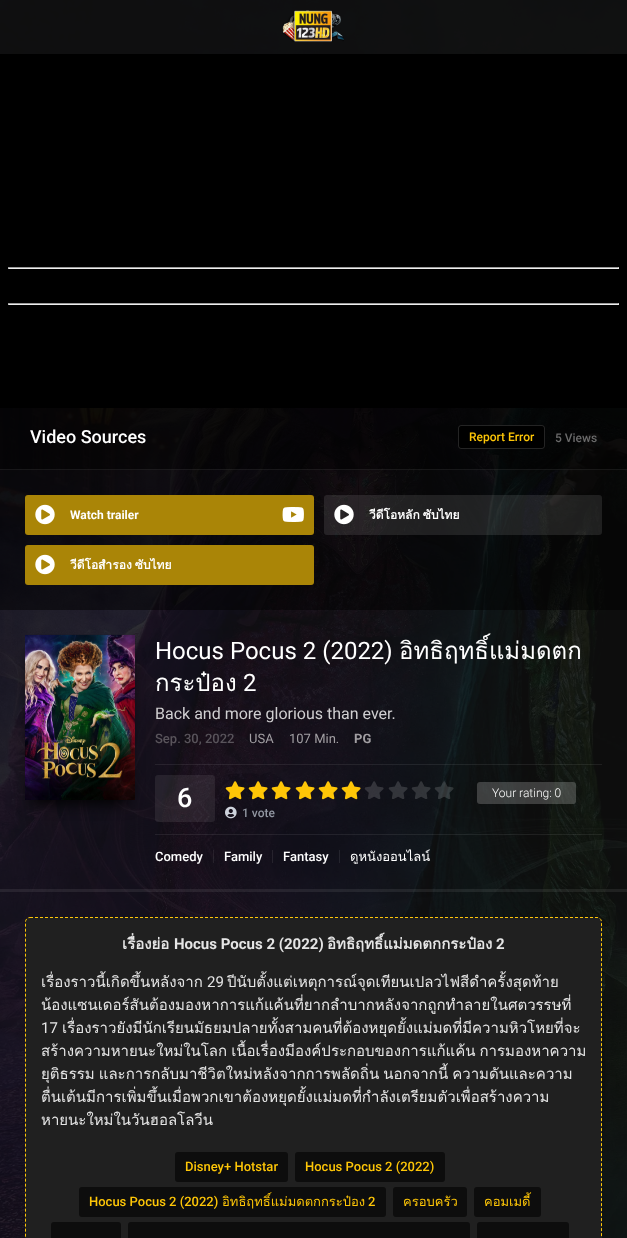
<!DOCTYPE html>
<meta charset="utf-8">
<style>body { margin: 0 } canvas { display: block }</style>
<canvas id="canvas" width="627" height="1238"></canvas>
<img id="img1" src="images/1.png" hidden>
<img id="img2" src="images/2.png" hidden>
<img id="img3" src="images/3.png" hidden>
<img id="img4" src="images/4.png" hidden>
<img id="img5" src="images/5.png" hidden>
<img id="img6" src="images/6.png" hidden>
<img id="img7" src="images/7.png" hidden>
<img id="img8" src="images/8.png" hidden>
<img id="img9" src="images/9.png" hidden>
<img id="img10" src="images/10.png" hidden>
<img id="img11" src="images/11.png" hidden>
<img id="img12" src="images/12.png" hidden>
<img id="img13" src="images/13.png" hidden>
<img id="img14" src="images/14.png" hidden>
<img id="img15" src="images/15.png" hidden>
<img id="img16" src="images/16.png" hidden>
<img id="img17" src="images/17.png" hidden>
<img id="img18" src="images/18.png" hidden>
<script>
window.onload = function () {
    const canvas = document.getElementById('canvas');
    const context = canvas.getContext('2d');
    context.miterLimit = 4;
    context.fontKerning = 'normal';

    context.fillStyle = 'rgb(255, 255, 255)';
    context.fillRect(0, 0, 627, 1238);
    context.drawImage(document.getElementById('img1'), 0, 0, 627, 1238);
    context.fillStyle = 'rgba(15, 15, 15, 0.99)';
    context.fillRect(0, 0, 627, 54);
    context.fillStyle = 'rgb(0, 0, 0)';
    context.fillRect(0, 54, 627, 354);
    context.drawImage(document.getElementById('img2'), 282, 10, 62, 32);
    context.drawImage(document.getElementById('img3'), 8, 267, 611, 38);
    context.fillStyle = 'rgba(15, 15, 15, 0.85)';
    context.fillRect(0, 408, 627, 830);
    context.fillStyle = 'rgba(0, 0, 0, 0.7)';
    context.fillRect(0, 408, 627, 62);
    context.fillStyle = 'rgba(255, 255, 255, 0.08)';
    context.fillRect(0, 469, 627, 1);
    context.fillStyle = 'rgb(0, 0, 0)';
    context.beginPath();
    context.roundRect(458, 425, 87, 24, 3);
    context.fill();
    context.beginPath();
    context.roundRect(458.5, 425.5, 86, 23, 2.5);
    context.strokeStyle = 'rgba(255, 255, 255, 0.14)';
    context.stroke();
    context.fillStyle = 'rgba(0, 0, 0, 0.5)';
    context.fillRect(0, 470, 627, 140);
    context.fillStyle = 'rgb(170, 133, 7)';
    context.beginPath();
    context.roundRect(25, 495, 289, 40, 3);
    context.fill();
    context.drawImage(document.getElementById('img4'), 35, 504, 20, 21);
    context.drawImage(document.getElementById('img5'), 282, 507, 22, 15);
    context.fillStyle = 'rgba(255, 255, 255, 0.1)';
    context.beginPath();
    context.roundRect(324, 495, 278, 40, 3);
    context.fill();
    context.drawImage(document.getElementById('img6'), 334, 504, 20, 21);
    context.fillStyle = 'rgb(170, 133, 7)';
    context.beginPath();
    context.roundRect(25, 545, 289, 40, 3);
    context.fill();
    context.drawImage(document.getElementById('img4'), 35, 554, 20, 21);
    context.fillStyle = 'rgba(255, 255, 255, 0.08)';
    context.fillRect(0, 889, 627, 3);
    context.fillStyle = 'rgb(0, 0, 0)';
    context.filter = 'blur(7.5px)';
    context.beginPath();
    context.rect(32, 652, 96, 151);
    context.fill();
    context.filter = 'none';
    context.drawImage(document.getElementById('img7'), 25, 634, 110, 166);
    context.fillStyle = 'rgba(255, 255, 255, 0.08)';
    context.fillRect(155, 764, 447, 1);
    context.fillRect(155, 834, 447, 1);
    context.drawImage(document.getElementById('img8'), 225, 781, 20, 19);
    context.drawImage(document.getElementById('img9'), 248, 781, 20, 19);
    context.drawImage(document.getElementById('img10'), 271, 781, 20, 19);
    context.drawImage(document.getElementById('img11'), 295, 781, 20, 19);
    context.drawImage(document.getElementById('img12'), 318, 781, 20, 19);
    context.drawImage(document.getElementById('img13'), 341, 781, 20, 19);
    context.drawImage(document.getElementById('img14'), 364, 781, 20, 18);
    context.drawImage(document.getElementById('img15'), 388, 781, 20, 18);
    context.drawImage(document.getElementById('img16'), 411, 781, 20, 18);
    context.drawImage(document.getElementById('img17'), 434, 781, 20, 18);
    context.beginPath();
    context.roundRect(155, 775, 60, 47, 3);
    context.fill();
    context.drawImage(document.getElementById('img18'), 225, 806, 12, 13);
    context.fillStyle = 'rgba(255, 255, 255, 0.2)';
    context.beginPath();
    context.roundRect(477, 782, 99, 22, 3);
    context.fill();
    context.fillStyle = 'rgba(255, 255, 255, 0.08)';
    context.fillRect(213, 850, 1, 13);
    context.fillStyle = 'rgb(38, 35, 45)';
    context.fillRect(272, 850, 1, 13);
    context.fillStyle = 'rgb(36, 36, 45)';
    context.fillRect(339, 850, 1, 13);
    context.fillStyle = 'rgb(32, 32, 32)';
    context.beginPath();
    context.roundRect(25, 917, 577, 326, 5);
    context.fill();
    context.beginPath();
    context.moveTo(30, 917.5);
    context.lineTo(597, 917.5);
    context.bezierCurveTo(599.5, 917.5, 601.5, 919.5, 601.5, 922);
    context.lineTo(601.5, 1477);
    context.bezierCurveTo(601.5, 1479.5, 599.5, 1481.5, 597, 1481.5);
    context.lineTo(30, 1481.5);
    context.bezierCurveTo(27.5, 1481.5, 25.5, 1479.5, 25.5, 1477);
    context.lineTo(25.5, 922);
    context.bezierCurveTo(25.5, 919.5, 27.5, 917.5, 30, 917.5);
    context.closePath();
    context.strokeStyle = 'rgb(254, 198, 7)';
    context.setLineDash([3, 2]);
    context.stroke();
    context.fillStyle = 'rgb(13, 13, 13)';
    context.beginPath();
    context.roundRect(175, 1152, 113, 30, 3);
    context.fill();
    context.beginPath();
    context.roundRect(295, 1152, 150, 30, 3);
    context.fill();
    context.beginPath();
    context.roundRect(79, 1187, 307, 30, 3);
    context.fill();
    context.beginPath();
    context.roundRect(393, 1187, 74, 30, 3);
    context.fill();
    context.beginPath();
    context.roundRect(474, 1187, 67, 30, 3);
    context.fill();
    context.beginPath();
    context.roundRect(51, 1222, 70, 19, 3);
    context.fill();
    context.beginPath();
    context.roundRect(128, 1222, 342, 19, 3);
    context.fill();
    context.beginPath();
    context.roundRect(477, 1222, 92, 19, 3);
    context.fill();
    context.font = '500 18px Roboto';
    context.fillStyle = 'rgb(255, 255, 255)';
    context.fillText('Video Sources', 30, 443);
    context.font = '500 12px Roboto';
    context.fillStyle = 'rgb(254, 198, 7)';
    context.fillText('Report Error', 469, 441);
    context.fillStyle = 'rgb(106, 106, 106)';
    context.fillText('5 Views', 555, 442);
    context.font = 'bold 12px Roboto';
    context.fillStyle = 'rgb(255, 255, 255)';
    context.fillText('Watch trailer', 70, 519);
    context.wordSpacing = '-1px';
    context.font = 'bold 12px Loma';
    context.fillText('วีดีโอหลัก ซับไทย', 369, 519);
    context.fillText('วีดีโอสำรอง ซับไทย', 70, 569);
    context.wordSpacing = '0px';
    context.font = '24px Roboto';
    context.fillText('Hocus Pocus 2 (2022)', 155, 659);
    context.font = '24px Loma';
    context.fillText('อิทธิฤทธิ์แม่มดตก', 399, 659);
    context.fillText('กระป๋อง', 155, 691);
    context.font = '24px Roboto';
    context.fillText('2', 243, 691);
    context.font = '16px Roboto';
    context.fillStyle = 'rgb(208, 207, 209)';
    context.fillText('Back and more glorious than ever.', 155, 719);
    context.font = '500 13px Roboto';
    context.fillStyle = 'rgb(89, 84, 91)';
    context.fillText('Sep. 30, 2022', 155, 743);
    context.font = '13px Roboto';
    context.fillStyle = 'rgb(162, 159, 163)';
    context.fillText('USA', 249, 743);
    context.fillText('107 Min.', 289, 743);
    context.font = 'bold 13px Roboto';
    context.fillText('PG', 354, 743);
    context.font = '500 27px Roboto';
    context.fillStyle = 'rgb(255, 255, 255)';
    context.fillText('6', 177, 807);
    context.font = '500 12px Roboto';
    context.fillStyle = 'rgb(146, 151, 162)';
    context.fillText('1 vote', 242, 817);
    context.font = '300 12px Roboto';
    context.fillStyle = 'rgb(255, 255, 255)';
    context.fillText('Your rating: 0', 492, 797);
    context.font = '500 13px Roboto';
    context.fillText('Comedy', 155, 861);
    context.fillText('Family', 224, 861);
    context.fillText('Fantasy', 283, 861);
    context.save();
    context.beginPath();
    context.rect(155, 845, 447, 19);
    context.clip();
    context.font = '13px Loma';
    context.fillText('ดูหนังออนไลน์', 350, 861);
    context.restore();
    context.font = 'bold 15px Loma';
    context.fillStyle = 'rgb(229, 229, 229)';
    context.fillText('เรื่องย่อ', 122, 949);
    context.font = 'bold 15px Roboto';
    context.fillText('Hocus Pocus 2 (2022)', 174, 949);
    context.font = 'bold 15px Loma';
    context.fillText('อิทธิฤทธิ์แม่มดตกกระป๋อง', 327, 949);
    context.font = 'bold 15px Roboto';
    context.fillText('2', 496, 949);
    context.font = '15px Loma';
    context.fillText('เรื่องราวนี้เกิดขึ้นหลังจาก', 41, 987);
    context.font = '15px Roboto';
    context.fillText('29', 207, 987);
    context.font = '15px Loma';
    context.fillText('ปีนับตั้งแต่เหตุการณ์จุดเทียนเปลวไฟสีดำครั้งสุดท้าย', 227, 987);
    context.fillText('น้องแซนเดอร์สันต้องมองหาการแก้แค้นที่ยากลำบากหลังจากถูกทำลายในศตวรรษที่', 41, 1010);
    context.font = '15px Roboto';
    context.fillText('17', 41, 1033);
    context.font = '15px Loma';
    context.fillText('เรื่องราวยังมีนักเรียนมัธยมปลายทั้งสามคนที่ต้องหยุดยั้งแม่มดที่มีความหิวโหยที่จะ', 62, 1033);
    context.wordSpacing = '-1px';
    context.fillText('สร้างความหายนะใหม่ในโลก เนื้อเรื่องมีองค์ประกอบของการแก้แค้น การมองหาความ', 41, 1056);
    context.fillText('ยุติธรรม และการกลับมาชีวิตใหม่หลังจากการพลัดถิ่น นอกจากนี้ ความดันและความ', 41, 1079);
    context.wordSpacing = '0px';
    context.fillText('ตื่นเต้นมีการเพิ่มขึ้นเมื่อพวกเขาต้องหยุดยั้งแม่มดที่กำลังเตรียมตัวเพื่อสร้างความ', 41, 1102);
    context.fillText('หายนะใหม่ในวันฮอลโลวีน', 41, 1125);
    context.font = '500 13px Roboto';
    context.fillStyle = 'rgb(254, 198, 7)';
    context.fillText('Disney+ Hotstar', 185, 1171);
    context.fillText('Hocus Pocus 2 (2022)', 305, 1171);
    context.fillText('Hocus Pocus 2 (2022)', 89, 1206);
    context.font = '13px Loma';
    context.fillText('อิทธิฤทธิ์แม่มดตกกระป๋อง', 222, 1206);
    context.font = '500 13px Roboto';
    context.fillText('2', 368, 1206);
    context.font = '13px Loma';
    context.fillText('ครอบครัว', 403, 1206);
    context.fillText('คอมเมดี้', 484, 1206);
};
</script>
